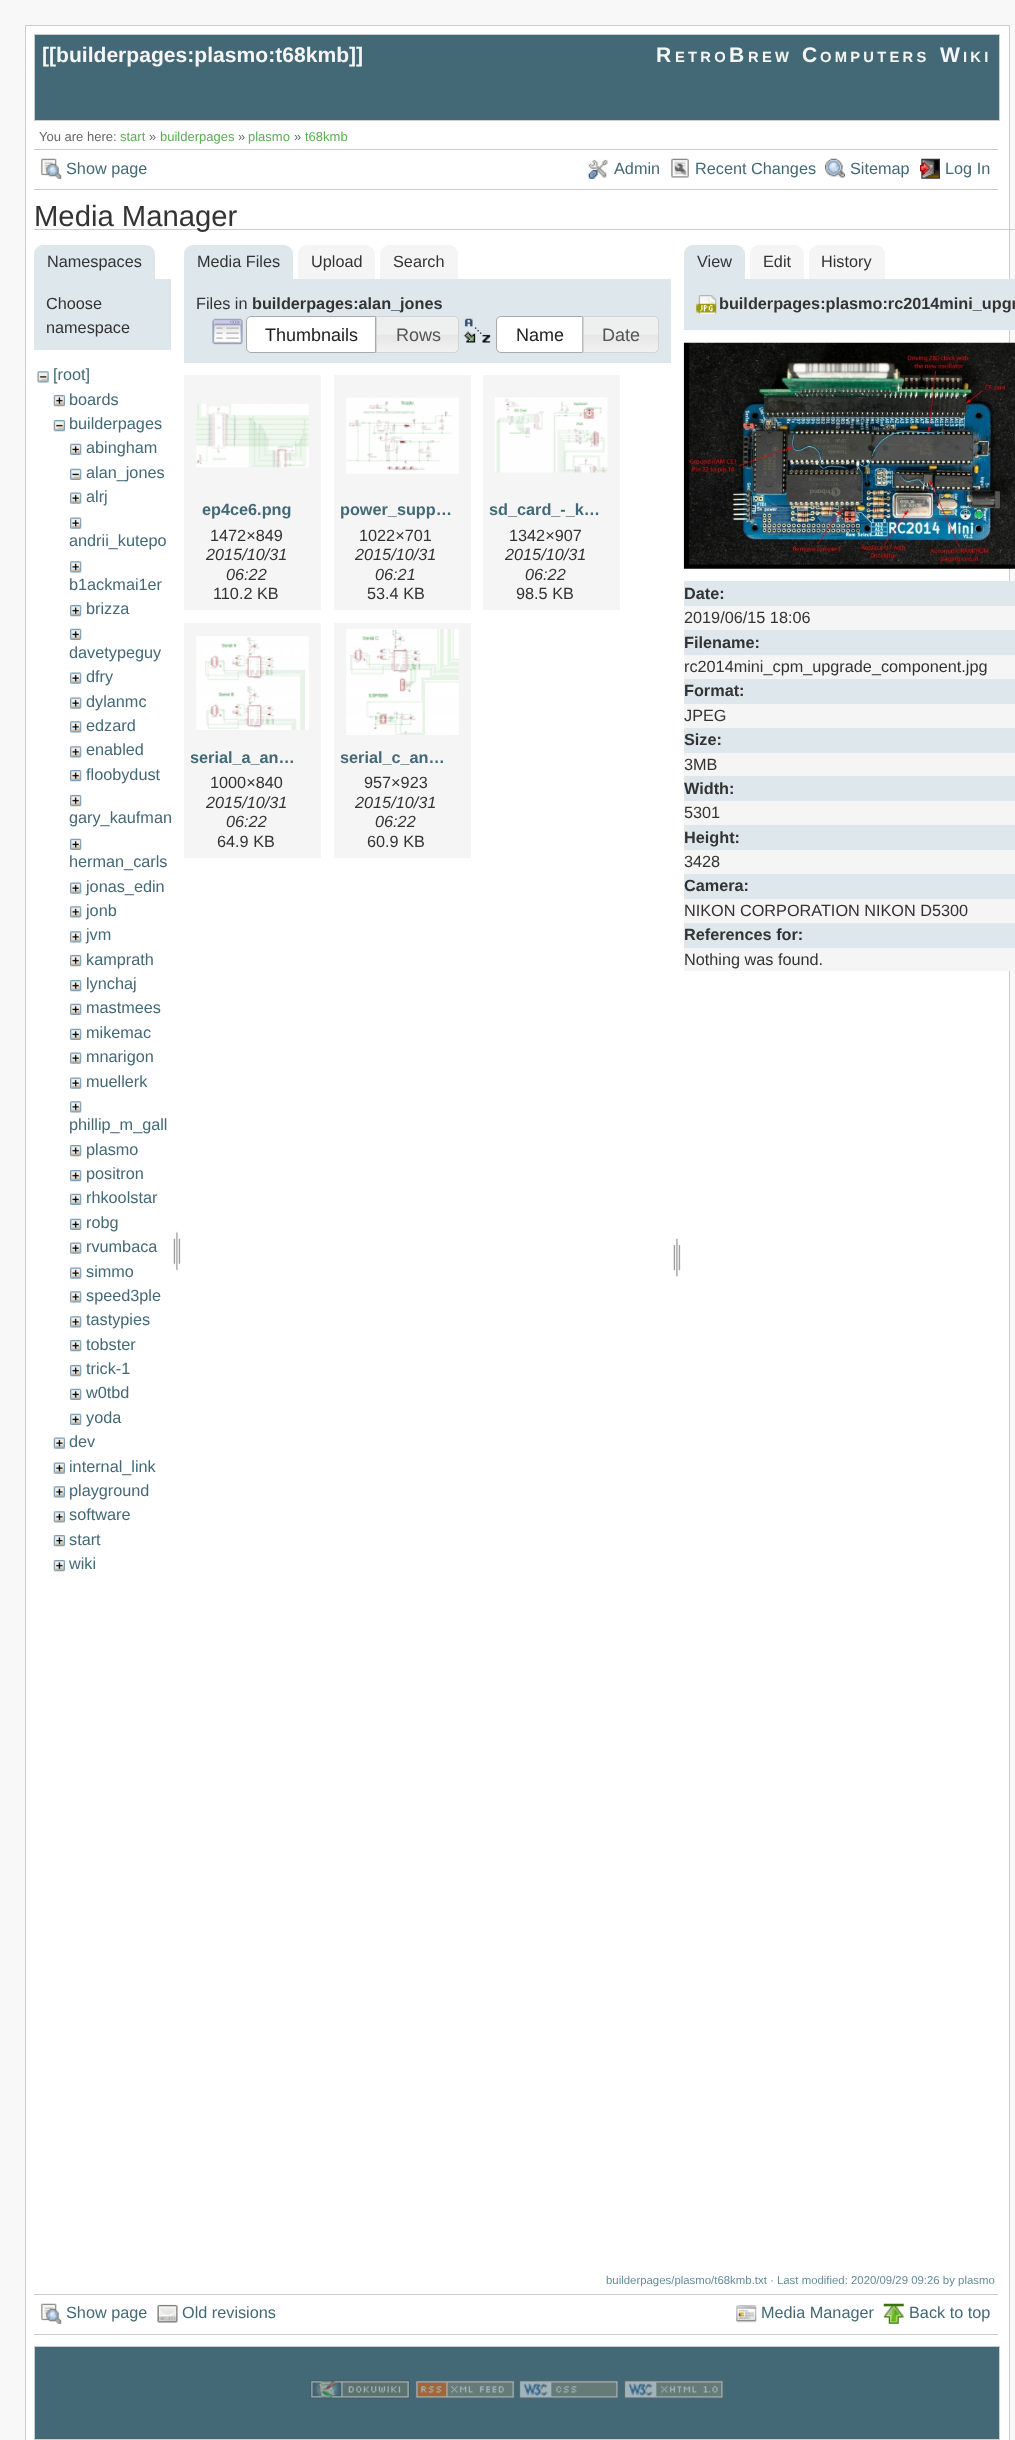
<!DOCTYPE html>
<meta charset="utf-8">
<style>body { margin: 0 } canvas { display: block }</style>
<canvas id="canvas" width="1015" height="2440"></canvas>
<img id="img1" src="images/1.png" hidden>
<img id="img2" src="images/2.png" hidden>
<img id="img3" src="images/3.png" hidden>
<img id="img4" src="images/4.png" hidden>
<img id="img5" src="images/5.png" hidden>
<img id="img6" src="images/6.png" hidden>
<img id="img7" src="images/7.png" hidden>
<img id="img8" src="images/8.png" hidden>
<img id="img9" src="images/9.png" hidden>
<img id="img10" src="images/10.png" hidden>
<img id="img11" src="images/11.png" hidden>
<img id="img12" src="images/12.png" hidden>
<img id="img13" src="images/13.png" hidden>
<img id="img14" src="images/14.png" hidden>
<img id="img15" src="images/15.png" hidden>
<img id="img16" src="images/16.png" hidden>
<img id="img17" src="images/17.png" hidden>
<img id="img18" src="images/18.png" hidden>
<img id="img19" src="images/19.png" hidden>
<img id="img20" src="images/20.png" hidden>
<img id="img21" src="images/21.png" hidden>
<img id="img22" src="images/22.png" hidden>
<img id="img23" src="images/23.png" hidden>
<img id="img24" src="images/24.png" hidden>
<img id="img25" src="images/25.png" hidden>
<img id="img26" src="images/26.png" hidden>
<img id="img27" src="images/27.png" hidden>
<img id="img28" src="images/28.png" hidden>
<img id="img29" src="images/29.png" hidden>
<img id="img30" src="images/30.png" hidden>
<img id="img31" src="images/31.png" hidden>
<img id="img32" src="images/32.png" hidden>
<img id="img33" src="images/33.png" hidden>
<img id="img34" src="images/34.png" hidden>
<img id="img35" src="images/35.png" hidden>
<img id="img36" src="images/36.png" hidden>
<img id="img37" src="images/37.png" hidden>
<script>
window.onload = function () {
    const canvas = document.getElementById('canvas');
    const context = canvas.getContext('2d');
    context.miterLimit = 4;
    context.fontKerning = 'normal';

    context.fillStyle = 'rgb(248, 248, 248)';
    context.fillRect(0, 0, 1015, 2440);
    context.fillStyle = 'rgb(255, 255, 255)';
    context.beginPath();
    context.rect(25.5, 25.5, 984, 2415);
    context.fill();
    context.strokeStyle = 'rgb(204, 204, 204)';
    context.stroke();
    context.fillStyle = 'rgb(67, 105, 118)';
    context.beginPath();
    context.rect(34.5, 34.5, 965, 86);
    context.fill();
    context.stroke();
    context.fillStyle = 'rgb(204, 204, 204)';
    context.fillRect(34, 149, 964, 1);
    context.fillRect(34, 189, 964, 1);
    context.drawImage(document.getElementById('img1'), 41, 158, 21, 21);
    context.drawImage(document.getElementById('img2'), 588, 159, 20, 20);
    context.drawImage(document.getElementById('img3'), 671, 158, 18, 20);
    context.drawImage(document.getElementById('img4'), 825, 158, 20, 20);
    context.drawImage(document.getElementById('img5'), 920, 158, 20, 21);
    context.fillRect(34, 229, 981, 1);
    context.fillStyle = 'rgb(222, 231, 236)';
    context.beginPath();
    context.roundRect(34, 245, 121, 34, [9, 9, 0, 0]);
    context.fill();
    context.fillRect(34, 279, 137, 71);
    context.drawImage(document.getElementById('img6'), 37, 371, 12, 12);
    context.drawImage(document.getElementById('img7'), 53, 395, 12, 12);
    context.drawImage(document.getElementById('img8'), 53, 420, 12, 12);
    context.drawImage(document.getElementById('img9'), 70, 443, 12, 12);
    context.drawImage(document.getElementById('img10'), 70, 468, 12, 12);
    context.drawImage(document.getElementById('img11'), 70, 492, 12, 12);
    context.drawImage(document.getElementById('img11'), 70, 517, 12, 12);
    context.drawImage(document.getElementById('img12'), 70, 561, 12, 12);
    context.drawImage(document.getElementById('img13'), 70, 605, 12, 12);
    context.drawImage(document.getElementById('img9'), 70, 628, 12, 12);
    context.drawImage(document.getElementById('img11'), 70, 672, 12, 12);
    context.drawImage(document.getElementById('img11'), 70, 697, 12, 12);
    context.drawImage(document.getElementById('img12'), 70, 721, 12, 12);
    context.drawImage(document.getElementById('img12'), 70, 746, 12, 12);
    context.drawImage(document.getElementById('img13'), 70, 770, 12, 12);
    context.drawImage(document.getElementById('img13'), 70, 795, 12, 12);
    context.drawImage(document.getElementById('img9'), 70, 838, 12, 12);
    context.drawImage(document.getElementById('img11'), 70, 882, 12, 12);
    context.drawImage(document.getElementById('img12'), 70, 906, 12, 12);
    context.drawImage(document.getElementById('img12'), 70, 931, 12, 12);
    context.drawImage(document.getElementById('img13'), 70, 955, 12, 12);
    context.drawImage(document.getElementById('img13'), 70, 980, 12, 12);
    context.drawImage(document.getElementById('img9'), 70, 1003, 12, 12);
    context.drawImage(document.getElementById('img9'), 70, 1028, 12, 12);
    context.drawImage(document.getElementById('img11'), 70, 1052, 12, 12);
    context.drawImage(document.getElementById('img11'), 70, 1077, 12, 12);
    context.drawImage(document.getElementById('img12'), 70, 1101, 12, 12);
    context.drawImage(document.getElementById('img13'), 70, 1145, 12, 12);
    context.drawImage(document.getElementById('img14'), 70, 1170, 12, 12);
    context.drawImage(document.getElementById('img9'), 70, 1193, 12, 12);
    context.drawImage(document.getElementById('img9'), 70, 1218, 12, 12);
    context.drawImage(document.getElementById('img11'), 70, 1242, 12, 12);
    context.drawImage(document.getElementById('img11'), 70, 1267, 12, 12);
    context.drawImage(document.getElementById('img12'), 70, 1291, 12, 12);
    context.drawImage(document.getElementById('img12'), 70, 1316, 12, 12);
    context.drawImage(document.getElementById('img13'), 70, 1340, 12, 12);
    context.drawImage(document.getElementById('img13'), 70, 1365, 12, 12);
    context.drawImage(document.getElementById('img9'), 70, 1388, 12, 12);
    context.drawImage(document.getElementById('img9'), 70, 1413, 12, 12);
    context.drawImage(document.getElementById('img15'), 53, 1437, 12, 12);
    context.drawImage(document.getElementById('img15'), 53, 1462, 12, 12);
    context.drawImage(document.getElementById('img16'), 53, 1486, 12, 12);
    context.drawImage(document.getElementById('img16'), 53, 1511, 12, 12);
    context.drawImage(document.getElementById('img7'), 53, 1535, 12, 12);
    context.drawImage(document.getElementById('img17'), 53, 1560, 12, 12);
    context.drawImage(document.getElementById('img18'), 173, 1231, 8, 40);
    context.beginPath();
    context.roundRect(184, 245, 109, 34, [9, 9, 0, 0]);
    context.fill();
    context.fillStyle = 'rgb(245, 245, 245)';
    context.beginPath();
    context.roundRect(298, 245, 77, 34, [9, 9, 0, 0]);
    context.fill();
    context.beginPath();
    context.roundRect(380, 245, 78, 34, [9, 9, 0, 0]);
    context.fill();
    context.fillStyle = 'rgb(222, 231, 236)';
    context.fillRect(184, 279, 487, 84);
    context.drawImage(document.getElementById('img19'), 212, 318, 31, 27);
    context.fillStyle = 'rgb(255, 255, 255)';
    context.beginPath();
    context.roundRect(246.5, 316.5, 129, 36, [4.5, 0, 0, 4.5]);
    context.fill();
    context.strokeStyle = 'rgb(170, 170, 170)';
    context.stroke();
    context.drawImage(document.getElementById('img20'), 377, 316, 82, 36);
    context.beginPath();
    context.roundRect(376.5, 316.5, 82, 36, [0, 4.5, 4.5, 0]);
    context.strokeStyle = 'rgb(211, 211, 211)';
    context.stroke();
    context.drawImage(document.getElementById('img21'), 463, 318, 28, 25);
    context.beginPath();
    context.roundRect(496.5, 316.5, 86, 36, [4.5, 0, 0, 4.5]);
    context.fill();
    context.strokeStyle = 'rgb(170, 170, 170)';
    context.stroke();
    context.drawImage(document.getElementById('img22'), 582, 316, 77, 37);
    context.beginPath();
    context.roundRect(583.5, 316.5, 75, 36, [0, 4.5, 4.5, 0]);
    context.strokeStyle = 'rgb(211, 211, 211)';
    context.stroke();
    context.fillStyle = 'rgb(245, 245, 245)';
    context.fillRect(184, 375, 137, 235);
    context.drawImage(document.getElementById('img23'), 196, 403, 113, 65);
    context.fillRect(334, 375, 137, 235);
    context.drawImage(document.getElementById('img24'), 346, 397, 113, 77);
    context.fillRect(483, 375, 137, 235);
    context.drawImage(document.getElementById('img25'), 495, 397, 113, 76);
    context.fillRect(184, 623, 137, 235);
    context.drawImage(document.getElementById('img26'), 196, 636, 113, 94);
    context.fillRect(334, 623, 137, 235);
    context.drawImage(document.getElementById('img27'), 346, 629, 113, 106);
    context.drawImage(document.getElementById('img28'), 673, 1238, 8, 39);
    context.fillStyle = 'rgb(222, 231, 236)';
    context.beginPath();
    context.roundRect(684, 245, 61, 34, [9, 9, 0, 0]);
    context.fill();
    context.fillStyle = 'rgb(245, 245, 245)';
    context.beginPath();
    context.roundRect(750, 245, 54, 34, [9, 9, 0, 0]);
    context.fill();
    context.beginPath();
    context.roundRect(809, 245, 76, 34, [9, 9, 0, 0]);
    context.fill();
    context.fillStyle = 'rgb(222, 231, 236)';
    context.fillRect(684, 279, 331, 51);
    context.drawImage(document.getElementById('img29'), 696, 295, 21, 19);
    context.drawImage(document.getElementById('img30'), 683, 342, 332, 227);
    context.fillRect(684, 581, 331, 25);
    context.fillStyle = 'rgb(245, 245, 245)';
    context.fillRect(684, 606, 331, 24);
    context.fillStyle = 'rgb(222, 231, 236)';
    context.fillRect(684, 630, 331, 25);
    context.fillStyle = 'rgb(245, 245, 245)';
    context.fillRect(684, 655, 331, 24);
    context.fillStyle = 'rgb(222, 231, 236)';
    context.fillRect(684, 679, 331, 25);
    context.fillStyle = 'rgb(245, 245, 245)';
    context.fillRect(684, 704, 331, 24);
    context.fillStyle = 'rgb(222, 231, 236)';
    context.fillRect(684, 728, 331, 25);
    context.fillStyle = 'rgb(245, 245, 245)';
    context.fillRect(684, 753, 331, 23);
    context.fillStyle = 'rgb(222, 231, 236)';
    context.fillRect(684, 776, 331, 25);
    context.fillStyle = 'rgb(245, 245, 245)';
    context.fillRect(684, 801, 331, 24);
    context.fillStyle = 'rgb(222, 231, 236)';
    context.fillRect(684, 825, 331, 25);
    context.fillStyle = 'rgb(245, 245, 245)';
    context.fillRect(684, 850, 331, 24);
    context.fillStyle = 'rgb(222, 231, 236)';
    context.fillRect(684, 874, 331, 25);
    context.fillStyle = 'rgb(245, 245, 245)';
    context.fillRect(684, 899, 331, 24);
    context.fillStyle = 'rgb(222, 231, 236)';
    context.fillRect(684, 923, 331, 25);
    context.fillStyle = 'rgb(245, 245, 245)';
    context.fillRect(684, 948, 331, 23);
    context.fillStyle = 'rgb(204, 204, 204)';
    context.fillRect(34, 2294, 964, 1);
    context.fillRect(34, 2334, 964, 1);
    context.drawImage(document.getElementById('img1'), 41, 2303, 21, 21);
    context.drawImage(document.getElementById('img31'), 157, 2304, 21, 19);
    context.drawImage(document.getElementById('img32'), 736, 2305, 21, 18);
    context.drawImage(document.getElementById('img33'), 883, 2303, 21, 21);
    context.fillStyle = 'rgb(67, 105, 118)';
    context.beginPath();
    context.rect(34.5, 2346.5, 965, 93);
    context.fill();
    context.strokeStyle = 'rgb(204, 204, 204)';
    context.stroke();
    context.drawImage(document.getElementById('img34'), 310, 2380, 100, 19);
    context.drawImage(document.getElementById('img35'), 415, 2380, 100, 19);
    context.drawImage(document.getElementById('img36'), 519, 2380, 100, 19);
    context.drawImage(document.getElementById('img37'), 624, 2380, 100, 19);
    context.font = 'bold 21.1px Liberation Sans';
    context.fillStyle = 'rgb(245, 245, 245)';
    context.fillText('[[', 42, 62);
    context.fillText('builderpages:plasmo:t68kmb', 56, 62);
    context.fillText(']]', 349, 62);
    context.letterSpacing = '3.25px';
    context.fillText('R', 656, 62);
    context.font = 'bold 14.75px Liberation Sans';
    context.fillText('ETRO', 675, 62);
    context.font = 'bold 21.1px Liberation Sans';
    context.fillText('B', 729, 62);
    context.font = 'bold 14.75px Liberation Sans';
    context.fillText('REW', 748, 62);
    context.font = 'bold 21.1px Liberation Sans';
    context.fillText('C', 802, 62);
    context.font = 'bold 14.75px Liberation Sans';
    context.fillText('OMPUTERS', 820, 62);
    context.font = 'bold 21.1px Liberation Sans';
    context.fillText('W', 940, 62);
    context.font = 'bold 14.75px Liberation Sans';
    context.fillText('IKI', 963, 62);
    context.letterSpacing = '0px';
    context.font = '13px Liberation Sans';
    context.fillStyle = 'rgb(102, 102, 102)';
    context.fillText('You are here:', 39, 141);
    context.fillStyle = 'rgb(86, 176, 79)';
    context.fillText('start', 120, 141);
    context.fillStyle = 'rgb(102, 102, 102)';
    context.fillText('»', 149, 141);
    context.fillStyle = 'rgb(86, 176, 79)';
    context.fillText('builderpages', 160, 141);
    context.fillStyle = 'rgb(102, 102, 102)';
    context.fillText('»', 238, 141);
    context.fillStyle = 'rgb(86, 176, 79)';
    context.fillText('plasmo', 248, 141);
    context.fillStyle = 'rgb(102, 102, 102)';
    context.fillText('»', 294, 141);
    context.fillStyle = 'rgb(86, 176, 79)';
    context.fillText('t68kmb', 305, 141);
    context.font = '16.25px Liberation Sans';
    context.fillStyle = 'rgb(67, 105, 118)';
    context.fillText('Show page', 66, 174);
    context.fillText('Admin', 614, 174);
    context.fillText('Recent Changes', 695, 174);
    context.fillText('Sitemap', 850, 174);
    context.fillText('Log In', 945, 174);
    context.font = '29.25px Liberation Sans';
    context.fillStyle = 'rgb(51, 51, 51)';
    context.fillText('Media Manager', 34, 226);
    context.font = '16.25px Liberation Sans';
    context.fillText('Namespaces', 47, 267);
    context.fillText('Choose', 46, 309);
    context.fillText('namespace', 46, 333);
    context.fillStyle = 'rgb(67, 105, 118)';
    context.fillText('[root]', 53, 380);
    context.fillText('boards', 69, 405);
    context.fillText('builderpages', 69, 429);
    context.fillText('abingham', 86, 453);
    context.fillText('alan_jones', 86, 478);
    context.fillText('alrj', 86, 502);
    context.fillText('andrii_kutepo', 69, 546);
    context.fillText('b1ackmai1er', 69, 590);
    context.fillText('brizza', 86, 614);
    context.fillText('davetypeguy', 69, 658);
    context.fillText('dfry', 86, 682);
    context.fillText('dylanmc', 86, 707);
    context.fillText('edzard', 86, 731);
    context.fillText('enabled', 86, 755);
    context.fillText('floobydust', 86, 780);
    context.save();
    context.beginPath();
    context.rect(34, 363, 137, 1893);
    context.clip();
    context.fillText('gary_kaufman', 69, 823);
    context.restore();
    context.fillText('herman_carls', 69, 867);
    context.fillText('jonas_edin', 86, 892);
    context.fillText('jonb', 86, 916);
    context.fillText('jvm', 86, 940);
    context.fillText('kamprath', 86, 965);
    context.fillText('lynchaj', 86, 989);
    context.fillText('mastmees', 86, 1013);
    context.fillText('mikemac', 86, 1038);
    context.fillText('mnarigon', 86, 1062);
    context.fillText('muellerk', 86, 1087);
    context.fillText('phillip_m_gall', 69, 1130);
    context.fillText('plasmo', 86, 1155);
    context.fillText('positron', 86, 1179);
    context.fillText('rhkoolstar', 86, 1203);
    context.fillText('robg', 86, 1228);
    context.fillText('rvumbaca', 86, 1252);
    context.fillText('simmo', 86, 1277);
    context.fillText('speed3ple', 86, 1301);
    context.fillText('tastypies', 86, 1325);
    context.fillText('tobster', 86, 1350);
    context.fillText('trick-1', 86, 1374);
    context.fillText('w0tbd', 86, 1398);
    context.fillText('yoda', 86, 1423);
    context.fillText('dev', 69, 1447);
    context.fillText('internal_link', 69, 1472);
    context.fillText('playground', 69, 1496);
    context.fillText('software', 69, 1520);
    context.fillText('start', 69, 1545);
    context.fillText('wiki', 69, 1569);
    context.fillStyle = 'rgb(51, 51, 51)';
    context.fillText('Media Files', 197, 267);
    context.fillText('Upload', 311, 267);
    context.fillText('Search', 393, 267);
    context.fillText('Files in', 196, 309);
    context.font = 'bold 16.25px Liberation Sans';
    context.fillText('builderpages:alan_jones', 252, 309);
    context.font = '18px Liberation Sans';
    context.fillStyle = 'rgb(33, 33, 33)';
    context.fillText('Thumbnails', 265, 341);
    context.fillStyle = 'rgb(85, 85, 85)';
    context.fillText('Rows', 396, 341);
    context.fillStyle = 'rgb(33, 33, 33)';
    context.fillText('Name', 516, 341);
    context.fillStyle = 'rgb(85, 85, 85)';
    context.fillText('Date', 602, 341);
    context.font = 'bold 16.25px Liberation Sans';
    context.fillStyle = 'rgb(67, 105, 118)';
    context.fillText('ep4ce6.png', 202, 515);
    context.font = '16.25px Liberation Sans';
    context.fillStyle = 'rgb(51, 51, 51)';
    context.fillText('1472×849', 210, 541);
    context.font = 'italic 16.25px Liberation Sans';
    context.fillText('2015/10/31', 206, 560);
    context.fillText('06:22', 226, 580);
    context.font = '16.25px Liberation Sans';
    context.fillText('110.2 KB', 213, 599);
    context.font = 'bold 16.25px Liberation Sans';
    context.fillStyle = 'rgb(67, 105, 118)';
    context.fillText('power_supp…', 340, 515);
    context.font = '16.25px Liberation Sans';
    context.fillStyle = 'rgb(51, 51, 51)';
    context.fillText('1022×701', 359, 541);
    context.font = 'italic 16.25px Liberation Sans';
    context.fillText('2015/10/31', 355, 560);
    context.fillText('06:21', 375, 580);
    context.font = '16.25px Liberation Sans';
    context.fillText('53.4 KB', 367, 599);
    context.font = 'bold 16.25px Liberation Sans';
    context.fillStyle = 'rgb(67, 105, 118)';
    context.fillText('sd_card_-_k…', 489, 515);
    context.font = '16.25px Liberation Sans';
    context.fillStyle = 'rgb(51, 51, 51)';
    context.fillText('1342×907', 509, 541);
    context.font = 'italic 16.25px Liberation Sans';
    context.fillText('2015/10/31', 505, 560);
    context.fillText('06:22', 525, 580);
    context.font = '16.25px Liberation Sans';
    context.fillText('98.5 KB', 516, 599);
    context.font = 'bold 16.25px Liberation Sans';
    context.fillStyle = 'rgb(67, 105, 118)';
    context.fillText('serial_a_an…', 190, 763);
    context.font = '16.25px Liberation Sans';
    context.fillStyle = 'rgb(51, 51, 51)';
    context.fillText('1000×840', 210, 788);
    context.font = 'italic 16.25px Liberation Sans';
    context.fillText('2015/10/31', 206, 808);
    context.fillText('06:22', 226, 827);
    context.font = '16.25px Liberation Sans';
    context.fillText('64.9 KB', 217, 847);
    context.font = 'bold 16.25px Liberation Sans';
    context.fillStyle = 'rgb(67, 105, 118)';
    context.fillText('serial_c_an…', 340, 763);
    context.font = '16.25px Liberation Sans';
    context.fillStyle = 'rgb(51, 51, 51)';
    context.fillText('957×923', 364, 788);
    context.font = 'italic 16.25px Liberation Sans';
    context.fillText('2015/10/31', 355, 808);
    context.fillText('06:22', 375, 827);
    context.font = '16.25px Liberation Sans';
    context.fillText('60.9 KB', 367, 847);
    context.fillText('View', 697, 267);
    context.fillText('Edit', 763, 267);
    context.fillText('History', 821, 267);
    context.font = 'bold 16.25px Liberation Sans';
    context.fillText('builderpages:plasmo:rc2014mini_upgr', 719, 309);
    context.fillText('Date:', 684, 599);
    context.font = '16.25px Liberation Sans';
    context.fillText('2019/06/15 18:06', 684, 623);
    context.font = 'bold 16.25px Liberation Sans';
    context.fillText('Filename:', 684, 648);
    context.font = '16.25px Liberation Sans';
    context.fillText('rc2014mini_cpm_upgrade_component.jpg', 684, 672);
    context.font = 'bold 16.25px Liberation Sans';
    context.fillText('Format:', 684, 696);
    context.font = '16.25px Liberation Sans';
    context.fillText('JPEG', 684, 721);
    context.font = 'bold 16.25px Liberation Sans';
    context.fillText('Size:', 684, 745);
    context.font = '16.25px Liberation Sans';
    context.fillText('3MB', 684, 770);
    context.font = 'bold 16.25px Liberation Sans';
    context.fillText('Width:', 684, 794);
    context.font = '16.25px Liberation Sans';
    context.fillText('5301', 684, 818);
    context.font = 'bold 16.25px Liberation Sans';
    context.fillText('Height:', 684, 843);
    context.font = '16.25px Liberation Sans';
    context.fillText('3428', 684, 867);
    context.font = 'bold 16.25px Liberation Sans';
    context.fillText('Camera:', 684, 891);
    context.font = '16.25px Liberation Sans';
    context.fillText('NIKON CORPORATION NIKON D5300', 684, 916);
    context.font = 'bold 16.25px Liberation Sans';
    context.fillText('References for:', 684, 940);
    context.font = '16.25px Liberation Sans';
    context.fillText('Nothing was found.', 684, 965);
    context.font = '11.4px Liberation Sans';
    context.fillStyle = 'rgb(99, 140, 156)';
    context.fillText('builderpages/plasmo/t68kmb.txt · Last modified: 2020/09/29 09:26 by plasmo', 606, 2284);
    context.font = '16.25px Liberation Sans';
    context.fillStyle = 'rgb(67, 105, 118)';
    context.fillText('Show page', 66, 2318);
    context.fillText('Old revisions', 182, 2318);
    context.fillText('Media Manager', 761, 2318);
    context.fillText('Back to top', 909, 2318);
};
</script>
